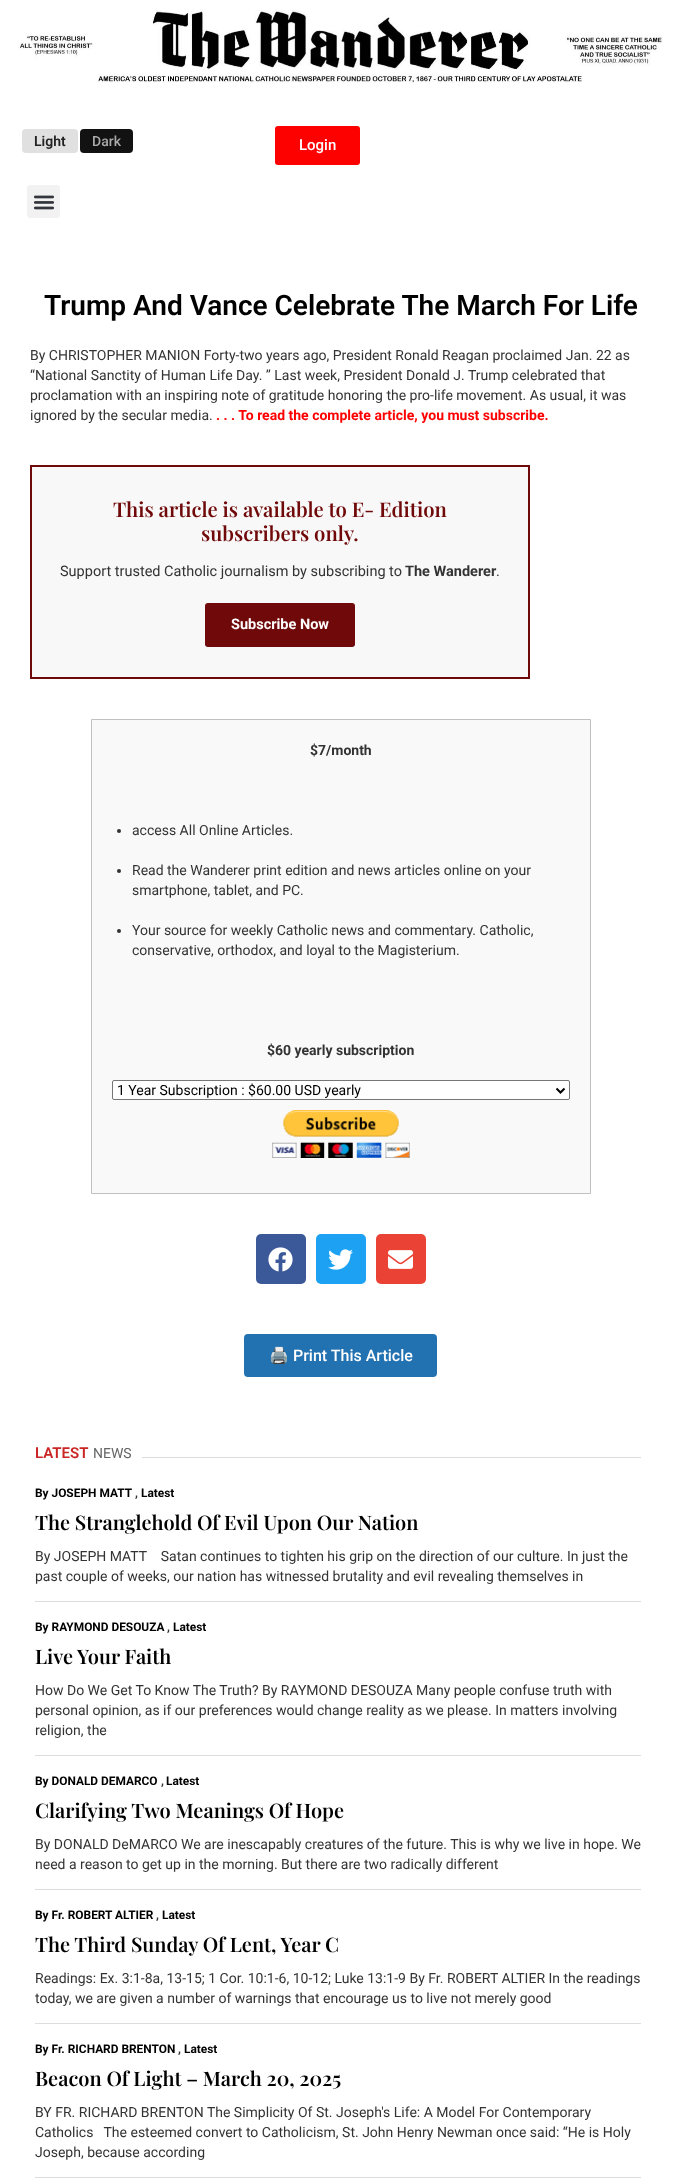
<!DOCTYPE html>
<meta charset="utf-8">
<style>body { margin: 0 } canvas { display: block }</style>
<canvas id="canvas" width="681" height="2183"></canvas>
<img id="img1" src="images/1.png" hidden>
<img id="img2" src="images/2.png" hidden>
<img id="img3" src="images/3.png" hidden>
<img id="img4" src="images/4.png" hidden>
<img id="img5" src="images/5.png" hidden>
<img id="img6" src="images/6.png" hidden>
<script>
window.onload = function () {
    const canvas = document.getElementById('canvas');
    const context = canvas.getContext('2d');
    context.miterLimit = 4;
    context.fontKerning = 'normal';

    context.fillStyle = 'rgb(255, 255, 255)';
    context.fillRect(0, 0, 681, 2183);
    context.drawImage(document.getElementById('img1'), 18, 10, 645, 73);
    context.fillStyle = 'rgb(224, 224, 224)';
    context.beginPath();
    context.roundRect(22, 129, 56, 24, 4);
    context.fill();
    context.fillStyle = 'rgb(18, 18, 18)';
    context.beginPath();
    context.roundRect(80, 129, 53, 24, 4);
    context.fill();
    context.fillStyle = 'rgb(253, 0, 0)';
    context.beginPath();
    context.roundRect(275, 126, 85, 39, 3);
    context.fill();
    context.fillStyle = 'rgb(242, 242, 242)';
    context.beginPath();
    context.roundRect(27, 185, 33, 33, 3);
    context.fill();
    context.drawImage(document.getElementById('img2'), 33, 195, 22, 15);
    context.fillStyle = 'rgb(248, 248, 248)';
    context.beginPath();
    context.rect(31, 466, 498, 212);
    context.fill();
    context.strokeStyle = 'rgb(112, 9, 9)';
    context.lineWidth = 2;
    context.stroke();
    context.fillStyle = 'rgb(112, 9, 9)';
    context.beginPath();
    context.roundRect(205, 603, 150, 44, 3);
    context.fill();
    context.fillStyle = 'rgb(249, 249, 249)';
    context.beginPath();
    context.rect(91.5, 719.5, 499, 474);
    context.fill();
    context.strokeStyle = 'rgb(192, 192, 192)';
    context.lineWidth = 1;
    context.stroke();
    context.fillStyle = 'rgb(51, 51, 51)';
    context.beginPath();
    context.arc(119, 831, 2, 0, 2 * Math.PI);
    context.fill();
    context.beginPath();
    context.arc(119, 871, 2, 0, 2 * Math.PI);
    context.fill();
    context.beginPath();
    context.arc(119, 931, 2, 0, 2 * Math.PI);
    context.fill();
    context.fillStyle = 'rgb(255, 255, 255)';
    context.beginPath();
    context.roundRect(112.5, 1080.5, 457, 19, 1.5);
    context.fill();
    context.strokeStyle = 'rgb(118, 118, 118)';
    context.stroke();
    context.beginPath();
    context.moveTo(556.5, 1088.5);
    context.lineTo(560.5, 1092.5);
    context.lineTo(564.5, 1088.5);
    context.strokeStyle = 'rgb(0, 0, 0)';
    context.lineWidth = 2;
    context.stroke();
    context.drawImage(document.getElementById('img3'), 272, 1110, 138, 48);
    context.fillStyle = 'rgb(59, 89, 152)';
    context.beginPath();
    context.roundRect(256, 1234, 50, 50, 5);
    context.fill();
    context.drawImage(document.getElementById('img4'), 268, 1247, 25, 25);
    context.fillStyle = 'rgb(29, 161, 242)';
    context.beginPath();
    context.roundRect(316, 1234, 50, 50, 5);
    context.fill();
    context.drawImage(document.getElementById('img5'), 328, 1249, 25, 21);
    context.fillStyle = 'rgb(234, 67, 53)';
    context.beginPath();
    context.roundRect(376, 1234, 50, 50, 5);
    context.fill();
    context.drawImage(document.getElementById('img6'), 388, 1250, 25, 19);
    context.fillStyle = 'rgb(34, 113, 177)';
    context.beginPath();
    context.roundRect(244, 1334, 193, 43, 4);
    context.fill();
    context.fillStyle = 'rgb(221, 221, 221)';
    context.fillRect(142, 1457, 499, 1);
    context.fillRect(35, 1601, 606, 1);
    context.fillRect(35, 1755, 606, 1);
    context.fillRect(35, 1889, 606, 1);
    context.fillRect(35, 2023, 606, 1);
    context.fillRect(35, 2177, 606, 1);
    context.font = '600 14px Roboto';
    context.fillStyle = 'rgb(34, 34, 34)';
    context.fillText('Light', 34, 146);
    context.font = '500 14px Roboto';
    context.fillStyle = 'rgb(170, 170, 170)';
    context.fillText('Dark', 92, 146);
    context.font = '500 15px Roboto';
    context.fillStyle = 'rgb(255, 255, 255)';
    context.fillText('Login', 299, 150);
    context.font = '600 28px Roboto';
    context.fillStyle = 'rgb(0, 0, 0)';
    context.fillText('Trump And Vance Celebrate The March For Life', 44, 315);
    context.font = '14px Roboto';
    context.fillStyle = 'rgb(51, 51, 51)';
    context.fillText('By CHRISTOPHER MANION Forty-two years ago, President Ronald Reagan proclaimed Jan. 22 as', 30, 360);
    context.fillText('“National Sanctity of Human Life Day. ” Last week, President Donald J. Trump celebrated that', 30, 380);
    context.fillText('proclamation with an inspiring note of gratitude honoring the pro-life movement. As usual, it was', 30, 400);
    context.fillText('ignored by the secular media.', 30, 420);
    context.font = 'bold 14px Roboto';
    context.fillStyle = 'rgb(255, 0, 0)';
    context.fillText('. . . To read the complete article, you must subscribe.', 216, 420);
    context.font = '600 20.25px Playfair Display';
    context.fillStyle = 'rgb(112, 9, 9)';
    context.fillText('This article is available to E- Edition', 113, 517);
    context.fillText('subscribers only.', 201, 541);
    context.font = '14.5px Roboto';
    context.fillStyle = 'rgb(51, 51, 51)';
    context.fillText('Support trusted Catholic journalism by subscribing to', 60, 576);
    context.font = 'bold 14.5px Roboto';
    context.fillText('The Wanderer', 405, 576);
    context.font = '14.5px Roboto';
    context.fillText('.', 496, 576);
    context.font = 'bold 14.5px Roboto';
    context.fillStyle = 'rgb(255, 255, 255)';
    context.fillText('Subscribe Now', 231, 629);
    context.font = 'bold 14px Roboto';
    context.fillStyle = 'rgb(51, 51, 51)';
    context.fillText('$7/month', 310, 755);
    context.font = '14px Roboto';
    context.fillText('access All Online Articles.', 132, 835);
    context.fillText('Read the Wanderer print edition and news articles online on your', 132, 875);
    context.fillText('smartphone, tablet, and PC.', 132, 895);
    context.fillText('Your source for weekly Catholic news and commentary. Catholic,', 132, 935);
    context.fillText('conservative, orthodox, and loyal to the Magisterium.', 132, 955);
    context.font = 'bold 14px Roboto';
    context.fillText('$60 yearly subscription', 267, 1055);
    context.font = '14px Roboto';
    context.fillStyle = 'rgb(0, 0, 0)';
    context.fillText('1 Year Subscription : $60.00 USD yearly', 117, 1095);
    context.font = '16px Noto Color Emoji';
    context.fillStyle = 'rgb(255, 255, 255)';
    context.fillText('🖨️', 269, 1361);
    context.font = '500 16px Roboto';
    context.fillText('Print This Article', 293, 1361);
    context.font = '600 15px Roboto';
    context.fillStyle = 'rgb(203, 38, 38)';
    context.fillText('LATEST', 35, 1458);
    context.font = '14px Roboto';
    context.fillStyle = 'rgb(102, 102, 102)';
    context.fillText('NEWS', 93, 1458);
    context.font = 'bold 11.9px Roboto';
    context.fillStyle = 'rgb(0, 0, 0)';
    context.fillText('By JOSEPH MATT', 35, 1497);
    context.fillStyle = 'rgb(51, 51, 51)';
    context.fillText(',', 135, 1497);
    context.fillStyle = 'rgb(0, 0, 0)';
    context.fillText('Latest', 141, 1497);
    context.font = '600 20px Playfair Display';
    context.fillText('The Stranglehold Of Evil Upon Our Nation', 35, 1530);
    context.font = '14px Roboto';
    context.fillStyle = 'rgb(51, 51, 51)';
    context.fillText('By JOSEPH MATT    Satan continues to tighten his grip on the direction of our culture. In just the', 35, 1561);
    context.fillText('past couple of weeks, our nation has witnessed brutality and evil revealing themselves in', 35, 1581);
    context.font = 'bold 11.9px Roboto';
    context.fillStyle = 'rgb(0, 0, 0)';
    context.fillText('By RAYMOND DESOUZA', 35, 1631);
    context.fillStyle = 'rgb(51, 51, 51)';
    context.fillText(',', 167, 1631);
    context.fillStyle = 'rgb(0, 0, 0)';
    context.fillText('Latest', 173, 1631);
    context.font = '600 20px Playfair Display';
    context.fillText('Live Your Faith', 35, 1664);
    context.font = '14px Roboto';
    context.fillStyle = 'rgb(51, 51, 51)';
    context.fillText('How Do We Get To Know The Truth? By RAYMOND DESOUZA Many people confuse truth with', 35, 1695);
    context.fillText('personal opinion, as if our preferences would change reality as we please. In matters involving', 35, 1715);
    context.fillText('religion, the', 35, 1735);
    context.font = 'bold 11.9px Roboto';
    context.fillStyle = 'rgb(0, 0, 0)';
    context.fillText('By DONALD DEMARCO', 35, 1785);
    context.fillStyle = 'rgb(51, 51, 51)';
    context.fillText(',', 161, 1785);
    context.fillStyle = 'rgb(0, 0, 0)';
    context.fillText('Latest', 166, 1785);
    context.font = '600 20px Playfair Display';
    context.fillText('Clarifying Two Meanings Of Hope', 35, 1818);
    context.font = '14px Roboto';
    context.fillStyle = 'rgb(51, 51, 51)';
    context.fillText('By DONALD DeMARCO We are inescapably creatures of the future. This is why we live in hope. We', 35, 1849);
    context.fillText('need a reason to get up in the morning. But there are two radically different', 35, 1869);
    context.font = 'bold 11.9px Roboto';
    context.fillStyle = 'rgb(0, 0, 0)';
    context.fillText('By Fr. ROBERT ALTIER', 35, 1919);
    context.fillStyle = 'rgb(51, 51, 51)';
    context.fillText(',', 156, 1919);
    context.fillStyle = 'rgb(0, 0, 0)';
    context.fillText('Latest', 162, 1919);
    context.font = '600 20px Playfair Display';
    context.fillText('The Third Sunday Of Lent, Year C', 35, 1952);
    context.font = '14px Roboto';
    context.fillStyle = 'rgb(51, 51, 51)';
    context.fillText('Readings: Ex. 3:1-8a, 13-15; 1 Cor. 10:1-6, 10-12; Luke 13:1-9 By Fr. ROBERT ALTIER In the readings', 35, 1983);
    context.fillText('today, we are given a number of warnings that encourage us to live not merely good', 35, 2003);
    context.font = 'bold 11.9px Roboto';
    context.fillStyle = 'rgb(0, 0, 0)';
    context.fillText('By Fr. RICHARD BRENTON', 35, 2053);
    context.fillStyle = 'rgb(51, 51, 51)';
    context.fillText(',', 178, 2053);
    context.fillStyle = 'rgb(0, 0, 0)';
    context.fillText('Latest', 184, 2053);
    context.font = '600 20px Playfair Display';
    context.fillText('Beacon Of Light – March 20, 2025', 35, 2086);
    context.font = '14px Roboto';
    context.fillStyle = 'rgb(51, 51, 51)';
    context.fillText('BY FR. RICHARD BRENTON The Simplicity Of St. Joseph\'s Life: A Model For Contemporary', 35, 2117);
    context.fillText('Catholics   The esteemed convert to Catholicism, St. John Henry Newman once said: “He is Holy', 35, 2137);
    context.fillText('Joseph, because according', 35, 2157);
};
</script>
